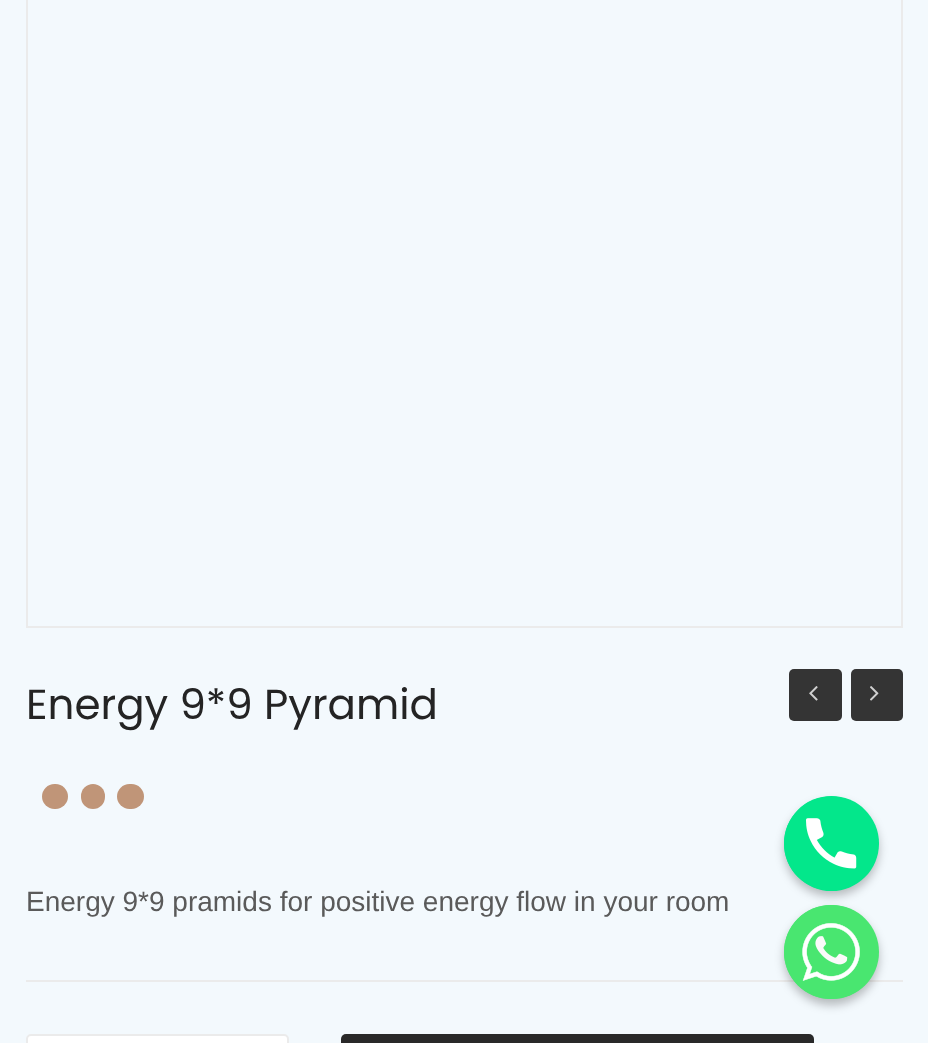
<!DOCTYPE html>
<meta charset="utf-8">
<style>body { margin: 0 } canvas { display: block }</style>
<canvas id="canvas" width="928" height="1043"></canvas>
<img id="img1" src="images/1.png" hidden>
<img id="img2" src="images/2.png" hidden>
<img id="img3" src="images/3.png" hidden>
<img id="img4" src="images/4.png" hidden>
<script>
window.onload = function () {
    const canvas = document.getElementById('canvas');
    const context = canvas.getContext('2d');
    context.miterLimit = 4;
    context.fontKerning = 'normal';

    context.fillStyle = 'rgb(243, 249, 253)';
    context.fillRect(0, 0, 928, 1043);
    context.strokeStyle = 'rgb(235, 235, 235)';
    context.lineWidth = 2;
    context.strokeRect(27, -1, 875, 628);
    context.fillStyle = 'rgb(52, 52, 52)';
    context.beginPath();
    context.roundRect(789, 669, 53, 52, 5);
    context.fill();
    context.drawImage(document.getElementById('img1'), 809, 686, 9, 15);
    context.beginPath();
    context.roundRect(851, 669, 52, 52, 5);
    context.fill();
    context.drawImage(document.getElementById('img2'), 870, 686, 9, 15);
    context.fillStyle = 'rgb(192, 149, 120)';
    context.beginPath();
    context.roundRect(81, 784, 24, 25, 12);
    context.fill();
    context.beginPath();
    context.roundRect(42, 784, 26, 25, 12.5);
    context.fill();
    context.beginPath();
    context.roundRect(117, 784, 27, 25, 12.5);
    context.fill();
    context.fillStyle = 'rgb(235, 235, 235)';
    context.fillRect(26, 980, 877, 2);
    context.fillStyle = 'rgb(255, 255, 255)';
    context.beginPath();
    context.roundRect(27, 1035, 261, 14, 4);
    context.fill();
    context.stroke();
    context.fillStyle = 'rgb(41, 41, 41)';
    context.beginPath();
    context.roundRect(341, 1034, 473, 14, 5);
    context.fill();
    context.fillStyle = 'rgba(0, 0, 0, 0.25)';
    context.filter = 'blur(5px)';
    context.beginPath();
    context.roundRect(784, 802, 95, 94, 47);
    context.fill();
    context.filter = 'none';
    context.fillStyle = 'rgb(3, 231, 139)';
    context.beginPath();
    context.arc(831.5, 843.5, 47.5, 0, 2 * Math.PI);
    context.fill();
    context.drawImage(document.getElementById('img3'), 784, 796, 73, 95);
    context.fillStyle = 'rgba(0, 0, 0, 0.25)';
    context.filter = 'blur(5px)';
    context.beginPath();
    context.roundRect(784, 910, 95, 95, 47.5);
    context.fill();
    context.filter = 'none';
    context.fillStyle = 'rgb(73, 230, 112)';
    context.beginPath();
    context.roundRect(784, 905, 95, 94, 47);
    context.fill();
    context.drawImage(document.getElementById('img4'), 784, 905, 76, 94);
    context.font = '42px Poppins';
    context.fillStyle = 'rgb(36, 36, 36)';
    context.fillText('Energy 9*9 Pyramid', 26, 719);
    context.font = '28px Liberation Sans';
    context.fillStyle = 'rgb(90, 90, 90)';
    context.fillText('Energy 9*9 pramids for positive energy flow in your room', 26, 911);
};
</script>
